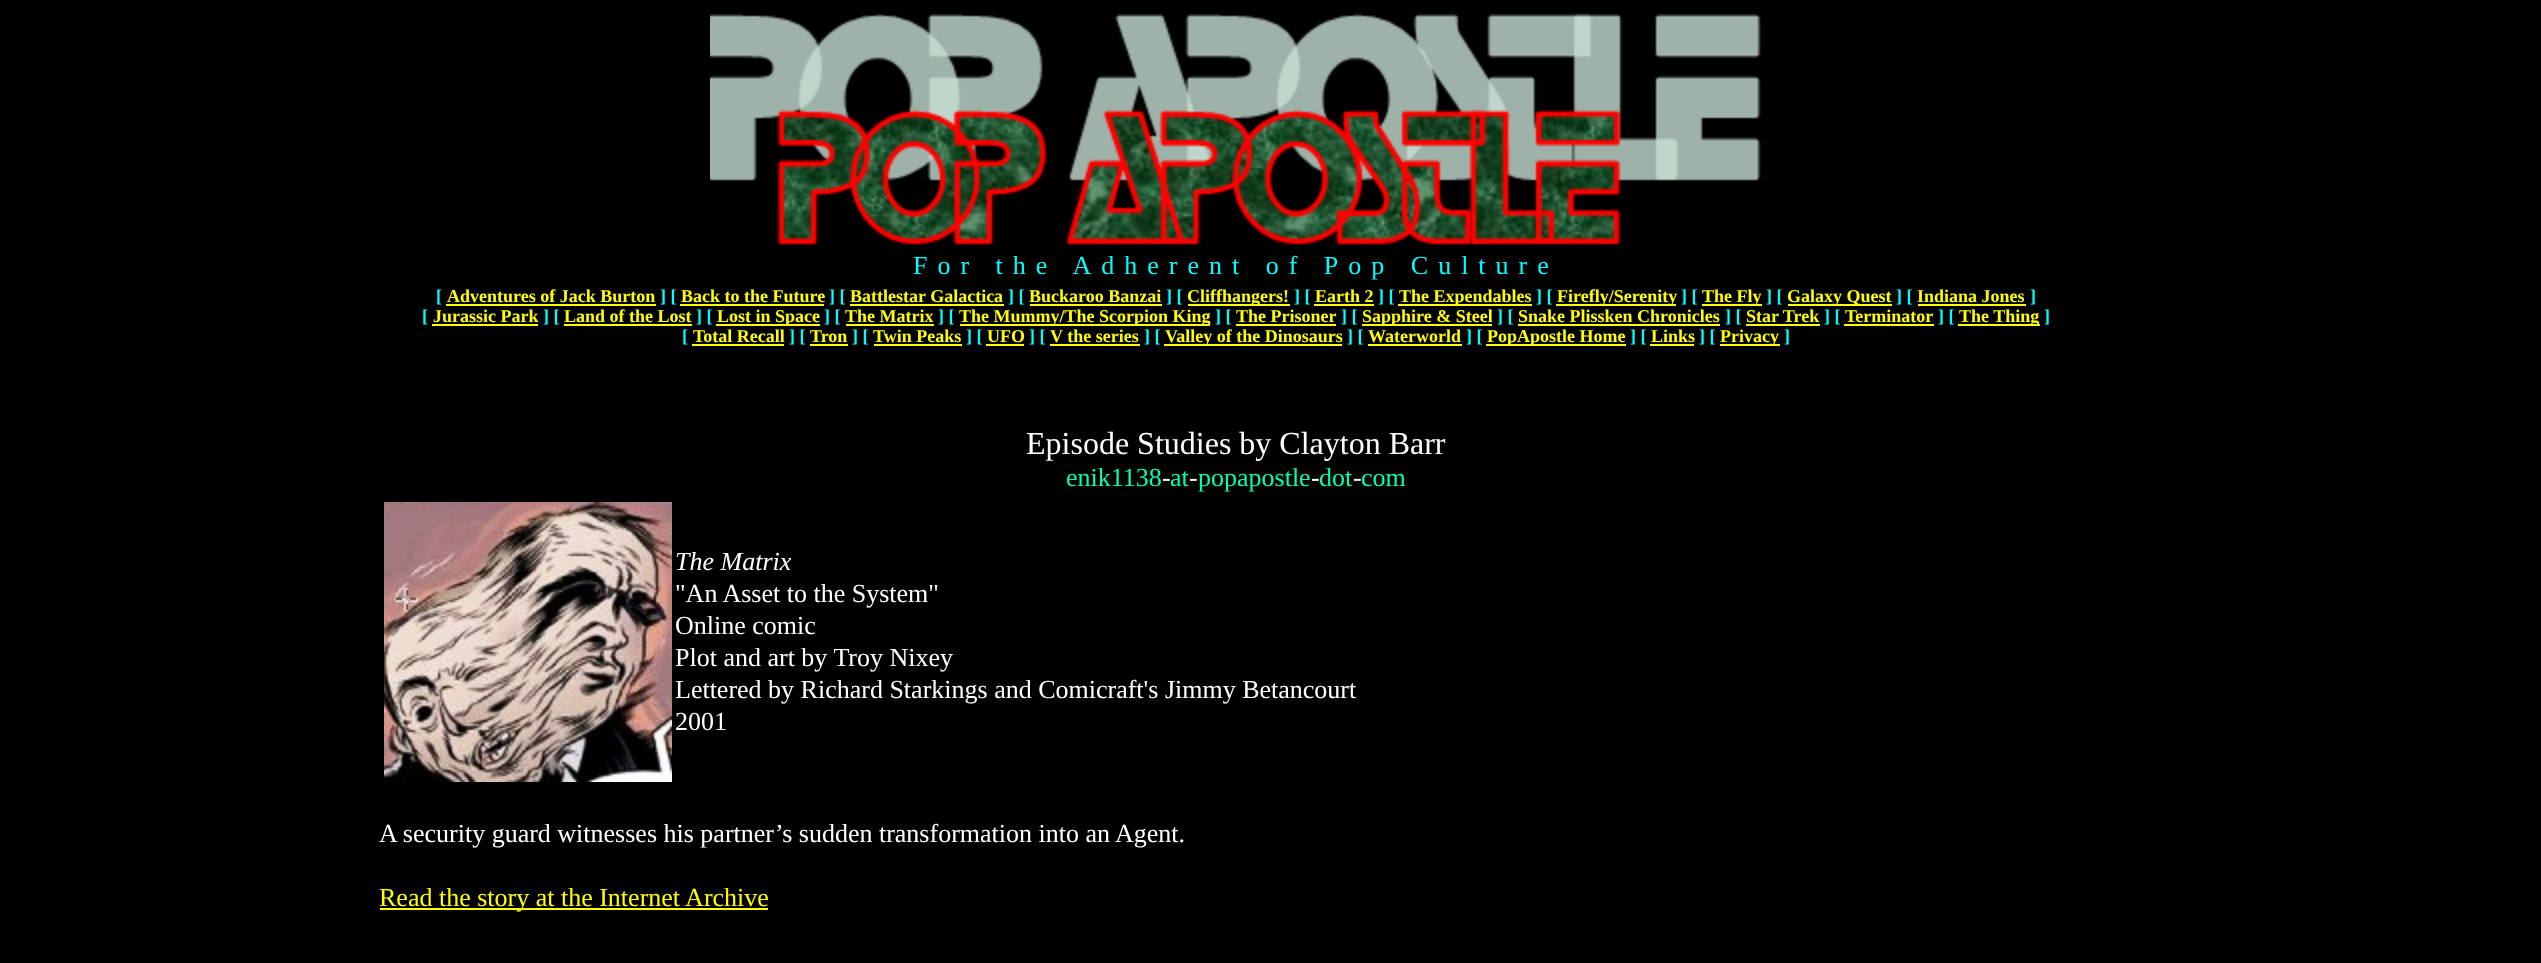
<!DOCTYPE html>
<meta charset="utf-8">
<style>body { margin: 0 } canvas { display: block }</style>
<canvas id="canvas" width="2541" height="963"></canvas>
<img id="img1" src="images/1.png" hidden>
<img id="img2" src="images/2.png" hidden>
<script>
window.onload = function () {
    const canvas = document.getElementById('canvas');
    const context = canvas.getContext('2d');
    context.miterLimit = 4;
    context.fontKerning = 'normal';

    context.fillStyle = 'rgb(0, 0, 0)';
    context.fillRect(0, 0, 2541, 963);
    context.drawImage(document.getElementById('img1'), 710, 13, 1051, 232);
    context.fillStyle = 'rgb(255, 255, 0)';
    context.fillRect(446, 304, 210, 2);
    context.fillRect(680, 304, 144, 2);
    context.fillRect(850, 304, 154, 2);
    context.fillRect(1030, 304, 132, 2);
    context.fillRect(1188, 304, 102, 2);
    context.fillRect(1314, 304, 60, 2);
    context.fillRect(1398, 304, 134, 2);
    context.fillRect(1556, 304, 120, 2);
    context.fillRect(1702, 304, 60, 2);
    context.fillRect(1788, 304, 104, 2);
    context.fillRect(1918, 304, 108, 2);
    context.fillRect(432, 324, 106, 2);
    context.fillRect(564, 324, 128, 2);
    context.fillRect(716, 324, 104, 2);
    context.fillRect(846, 324, 88, 2);
    context.fillRect(960, 324, 250, 2);
    context.fillRect(1236, 324, 100, 2);
    context.fillRect(1362, 324, 130, 2);
    context.fillRect(1518, 324, 202, 2);
    context.fillRect(1746, 324, 74, 2);
    context.fillRect(1844, 324, 90, 2);
    context.fillRect(1958, 324, 82, 2);
    context.fillRect(692, 344, 92, 2);
    context.fillRect(810, 344, 38, 2);
    context.fillRect(874, 344, 88, 2);
    context.fillRect(986, 344, 38, 2);
    context.fillRect(1050, 344, 90, 2);
    context.fillRect(1164, 344, 178, 2);
    context.fillRect(1368, 344, 94, 2);
    context.fillRect(1486, 344, 140, 2);
    context.fillRect(1650, 344, 44, 2);
    context.fillRect(1720, 344, 60, 2);
    context.drawImage(document.getElementById('img2'), 384, 502, 288, 280);
    context.fillRect(380, 908, 388, 2);
    context.letterSpacing = '10px';
    context.font = '26px Liberation Serif';
    context.fillStyle = 'rgb(0, 255, 255)';
    context.fillText('For the Adherent of Pop Culture', 913, 274);
    context.letterSpacing = '0px';
    context.font = 'bold 18px Liberation Serif';
    context.fillText('[', 436, 302);
    context.fillStyle = 'rgb(255, 255, 0)';
    context.fillText('Adventures of Jack Burton', 447, 302);
    context.fillStyle = 'rgb(0, 255, 255)';
    context.fillText('] [', 660, 302);
    context.fillStyle = 'rgb(255, 255, 0)';
    context.fillText('Back to the Future', 681, 302);
    context.fillStyle = 'rgb(0, 255, 255)';
    context.fillText('] [', 829, 302);
    context.fillStyle = 'rgb(255, 255, 0)';
    context.fillText('Battlestar Galactica', 850, 302);
    context.fillStyle = 'rgb(0, 255, 255)';
    context.fillText('] [', 1008, 302);
    context.fillStyle = 'rgb(255, 255, 0)';
    context.fillText('Buckaroo Banzai', 1029, 302);
    context.fillStyle = 'rgb(0, 255, 255)';
    context.fillText('] [', 1166, 302);
    context.fillStyle = 'rgb(255, 255, 0)';
    context.fillText('Cliffhangers!', 1187, 302);
    context.fillStyle = 'rgb(0, 255, 255)';
    context.fillText('] [', 1294, 302);
    context.fillStyle = 'rgb(255, 255, 0)';
    context.fillText('Earth 2', 1315, 302);
    context.fillStyle = 'rgb(0, 255, 255)';
    context.fillText('] [', 1378, 302);
    context.fillStyle = 'rgb(255, 255, 0)';
    context.fillText('The Expendables', 1399, 302);
    context.fillStyle = 'rgb(0, 255, 255)';
    context.fillText('] [', 1536, 302);
    context.fillStyle = 'rgb(255, 255, 0)';
    context.fillText('Firefly/Serenity', 1557, 302);
    context.fillStyle = 'rgb(0, 255, 255)';
    context.fillText('] [', 1681, 302);
    context.fillStyle = 'rgb(255, 255, 0)';
    context.fillText('The Fly', 1702, 302);
    context.fillStyle = 'rgb(0, 255, 255)';
    context.fillText('] [', 1766, 302);
    context.fillStyle = 'rgb(255, 255, 0)';
    context.fillText('Galaxy Quest', 1787, 302);
    context.fillStyle = 'rgb(0, 255, 255)';
    context.fillText('] [', 1896, 302);
    context.fillStyle = 'rgb(255, 255, 0)';
    context.fillText('Indiana Jones', 1917, 302);
    context.fillStyle = 'rgb(0, 255, 255)';
    context.fillText(']', 2030, 302);
    context.fillText('[', 422, 322);
    context.fillStyle = 'rgb(255, 255, 0)';
    context.fillText('Jurassic Park', 433, 322);
    context.fillStyle = 'rgb(0, 255, 255)';
    context.fillText('] [', 543, 322);
    context.fillStyle = 'rgb(255, 255, 0)';
    context.fillText('Land of the Lost', 564, 322);
    context.fillStyle = 'rgb(0, 255, 255)';
    context.fillText('] [', 696, 322);
    context.fillStyle = 'rgb(255, 255, 0)';
    context.fillText('Lost in Space', 717, 322);
    context.fillStyle = 'rgb(0, 255, 255)';
    context.fillText('] [', 824, 322);
    context.fillStyle = 'rgb(255, 255, 0)';
    context.fillText('The Matrix', 845, 322);
    context.fillStyle = 'rgb(0, 255, 255)';
    context.fillText('] [', 938, 322);
    context.fillStyle = 'rgb(255, 255, 0)';
    context.fillText('The Mummy/The Scorpion King', 959, 322);
    context.fillStyle = 'rgb(0, 255, 255)';
    context.fillText('] [', 1215, 322);
    context.fillStyle = 'rgb(255, 255, 0)';
    context.fillText('The Prisoner', 1236, 322);
    context.fillStyle = 'rgb(0, 255, 255)';
    context.fillText('] [', 1341, 322);
    context.fillStyle = 'rgb(255, 255, 0)';
    context.fillText('Sapphire & Steel', 1362, 322);
    context.fillStyle = 'rgb(0, 255, 255)';
    context.fillText('] [', 1497, 322);
    context.fillStyle = 'rgb(255, 255, 0)';
    context.fillText('Snake Plissken Chronicles', 1518, 322);
    context.fillStyle = 'rgb(0, 255, 255)';
    context.fillText('] [', 1725, 322);
    context.fillStyle = 'rgb(255, 255, 0)';
    context.fillText('Star Trek', 1746, 322);
    context.fillStyle = 'rgb(0, 255, 255)';
    context.fillText('] [', 1824, 322);
    context.fillStyle = 'rgb(255, 255, 0)';
    context.fillText('Terminator', 1845, 322);
    context.fillStyle = 'rgb(0, 255, 255)';
    context.fillText('] [', 1938, 322);
    context.fillStyle = 'rgb(255, 255, 0)';
    context.fillText('The Thing', 1959, 322);
    context.fillStyle = 'rgb(0, 255, 255)';
    context.fillText(']', 2044, 322);
    context.fillText('[', 682, 342);
    context.fillStyle = 'rgb(255, 255, 0)';
    context.fillText('Total Recall', 693, 342);
    context.fillStyle = 'rgb(0, 255, 255)';
    context.fillText('] [', 789, 342);
    context.fillStyle = 'rgb(255, 255, 0)';
    context.fillText('Tron', 810, 342);
    context.fillStyle = 'rgb(0, 255, 255)';
    context.fillText('] [', 852, 342);
    context.fillStyle = 'rgb(255, 255, 0)';
    context.fillText('Twin Peaks', 873, 342);
    context.fillStyle = 'rgb(0, 255, 255)';
    context.fillText('] [', 966, 342);
    context.fillStyle = 'rgb(255, 255, 0)';
    context.fillText('UFO', 987, 342);
    context.fillStyle = 'rgb(0, 255, 255)';
    context.fillText('] [', 1029, 342);
    context.fillStyle = 'rgb(255, 255, 0)';
    context.fillText('V the series', 1050, 342);
    context.fillStyle = 'rgb(0, 255, 255)';
    context.fillText('] [', 1144, 342);
    context.fillStyle = 'rgb(255, 255, 0)';
    context.fillText('Valley of the Dinosaurs', 1165, 342);
    context.fillStyle = 'rgb(0, 255, 255)';
    context.fillText('] [', 1347, 342);
    context.fillStyle = 'rgb(255, 255, 0)';
    context.fillText('Waterworld', 1368, 342);
    context.fillStyle = 'rgb(0, 255, 255)';
    context.fillText('] [', 1466, 342);
    context.fillStyle = 'rgb(255, 255, 0)';
    context.fillText('PopApostle Home', 1487, 342);
    context.fillStyle = 'rgb(0, 255, 255)';
    context.fillText('] [', 1630, 342);
    context.fillStyle = 'rgb(255, 255, 0)';
    context.fillText('Links', 1651, 342);
    context.fillStyle = 'rgb(0, 255, 255)';
    context.fillText('] [', 1699, 342);
    context.fillStyle = 'rgb(255, 255, 0)';
    context.fillText('Privacy', 1720, 342);
    context.fillStyle = 'rgb(0, 255, 255)';
    context.fillText(']', 1784, 342);
    context.font = '32px Liberation Serif';
    context.fillStyle = 'rgb(255, 255, 255)';
    context.fillText('Episode Studies by Clayton Barr', 1026, 454);
    context.font = '26px Liberation Serif';
    context.fillStyle = 'rgb(0, 255, 177)';
    context.fillText('enik1138', 1066, 486);
    context.fillStyle = 'rgb(255, 255, 255)';
    context.fillText('-', 1162, 486);
    context.fillStyle = 'rgb(0, 255, 177)';
    context.fillText('at', 1170, 486);
    context.fillStyle = 'rgb(255, 255, 255)';
    context.fillText('-', 1189, 486);
    context.fillStyle = 'rgb(0, 255, 177)';
    context.fillText('popapostle', 1198, 486);
    context.fillStyle = 'rgb(255, 255, 255)';
    context.fillText('-', 1311, 486);
    context.fillStyle = 'rgb(0, 255, 177)';
    context.fillText('dot', 1319, 486);
    context.fillStyle = 'rgb(255, 255, 255)';
    context.fillText('-', 1353, 486);
    context.fillStyle = 'rgb(0, 255, 177)';
    context.fillText('com', 1361, 486);
    context.font = 'italic 26px Liberation Serif';
    context.fillStyle = 'rgb(255, 255, 255)';
    context.fillText('The Matrix', 675, 570);
    context.font = '26px Liberation Serif';
    context.fillText('"An Asset to the System"', 675, 602);
    context.fillText('Online comic', 675, 634);
    context.fillText('Plot and art by Troy Nixey', 675, 666);
    context.fillText('Lettered by Richard Starkings and Comicraft\'s Jimmy Betancourt', 675, 698);
    context.fillText('2001', 675, 730);
    context.fillText('A security guard witnesses his partner’s sudden transformation into an Agent.', 379, 842);
    context.fillStyle = 'rgb(255, 255, 0)';
    context.fillText('Read the story at the Internet Archive', 379, 906);
};
</script>
